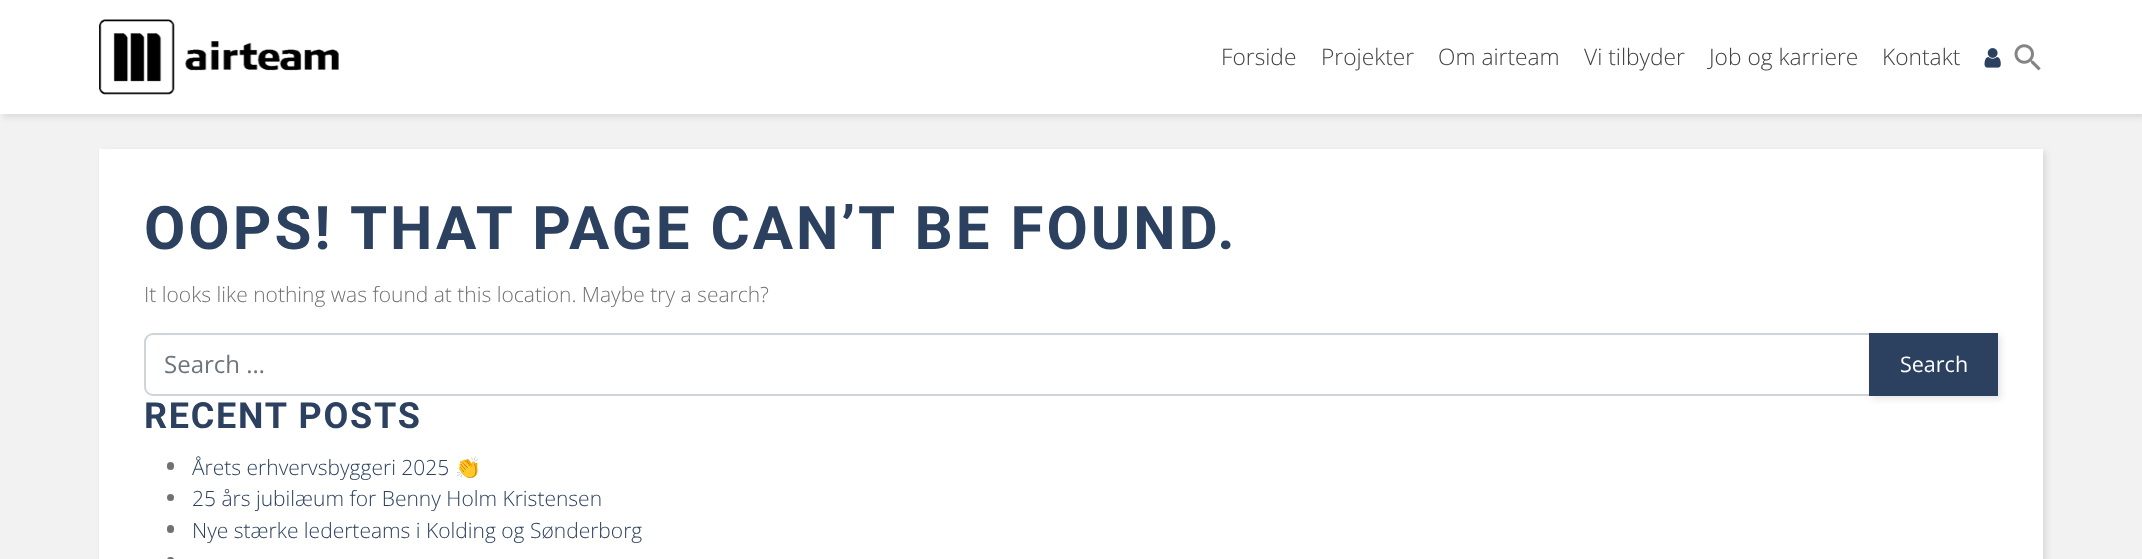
<!DOCTYPE html>
<meta charset="utf-8">
<style>body { margin: 0 } canvas { display: block }</style>
<canvas id="canvas" width="2142" height="559"></canvas>
<img id="img1" src="images/1.png" hidden>
<img id="img2" src="images/2.png" hidden>
<img id="img3" src="images/3.png" hidden>
<script>
window.onload = function () {
    const canvas = document.getElementById('canvas');
    const context = canvas.getContext('2d');
    context.miterLimit = 4;
    context.fontKerning = 'normal';

    context.fillStyle = 'rgb(242, 242, 242)';
    context.fillRect(0, 0, 2142, 559);
    context.fillStyle = 'rgba(0, 0, 0, 0.1)';
    context.filter = 'blur(3px)';
    context.beginPath();
    context.rect(3, 3, 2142, 114);
    context.fill();
    context.filter = 'none';
    context.fillStyle = 'rgb(255, 255, 255)';
    context.fillRect(0, 0, 2142, 114);
    context.drawImage(document.getElementById('img1'), 99, 19, 240, 76);
    context.drawImage(document.getElementById('img2'), 1984, 48, 17, 20);
    context.drawImage(document.getElementById('img3'), 2014, 44, 27, 27);
    context.fillStyle = 'rgba(0, 0, 0, 0.1)';
    context.filter = 'blur(3px)';
    context.beginPath();
    context.rect(102, 152, 1944, 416);
    context.fill();
    context.filter = 'none';
    context.fillStyle = 'rgb(255, 255, 255)';
    context.fillRect(99, 149, 1944, 410);
    context.beginPath();
    context.roundRect(145, 334, 1725, 61, [8, 0, 0, 8]);
    context.strokeStyle = 'rgb(206, 212, 218)';
    context.lineWidth = 2;
    context.stroke();
    context.fillStyle = 'rgba(0, 0, 0, 0.1)';
    context.filter = 'blur(3px)';
    context.beginPath();
    context.rect(1872, 336, 129, 63);
    context.fill();
    context.filter = 'none';
    context.fillStyle = 'rgb(43, 65, 95)';
    context.fillRect(1869, 333, 129, 63);
    context.fillStyle = 'rgb(113, 113, 113)';
    context.beginPath();
    context.roundRect(167, 462, 7, 8, 3.5);
    context.fill();
    context.beginPath();
    context.arc(170.5, 497.5, 3.5, 0, 2 * Math.PI);
    context.fill();
    context.beginPath();
    context.roundRect(167, 525, 7, 8, 3.5);
    context.fill();
    context.beginPath();
    context.roundRect(167, 557, 7, 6, 3.5);
    context.fill();
    context.font = '300 22.75px Open Sans';
    context.fillStyle = 'rgb(66, 66, 66)';
    context.fillText('Forside', 1221, 65);
    context.fillText('Projekter', 1321, 65);
    context.fillText('Om airteam', 1438, 65);
    context.fillText('Vi tilbyder', 1584, 65);
    context.fillText('Job og karriere', 1709, 65);
    context.fillText('Kontakt', 1882, 65);
    context.letterSpacing = '3px';
    context.font = 'bold 60px Roboto';
    context.fillStyle = 'rgb(43, 65, 95)';
    context.fillText('OOPS! THAT PAGE CAN’T BE FOUND.', 144, 249);
    context.letterSpacing = '0px';
    context.font = '300 21px Open Sans';
    context.fillStyle = 'rgb(113, 113, 113)';
    context.fillText('It looks like nothing was found at this location. Maybe try a search?', 144, 302);
    context.font = '24px Open Sans';
    context.fillStyle = 'rgb(108, 117, 125)';
    context.fillText('Search …', 164, 373);
    context.font = '21.5px Open Sans';
    context.fillStyle = 'rgb(255, 255, 255)';
    context.fillText('Search', 1900, 372);
    context.letterSpacing = '1.75px';
    context.font = 'bold 36px Roboto';
    context.fillStyle = 'rgb(43, 65, 95)';
    context.fillText('RECENT POSTS', 144, 428);
    context.letterSpacing = '0px';
    context.font = '300 21px Open Sans';
    context.fillText('Årets erhvervsbyggeri 2025', 192, 475);
    context.font = '21px Noto Color Emoji';
    context.fillText('👏', 455, 475);
    context.font = '300 21px Open Sans';
    context.fillText('25 års jubilæum for Benny Holm Kristensen', 192, 506);
    context.fillText('Nye stærke lederteams i Kolding og Sønderborg', 192, 538);
};
</script>
